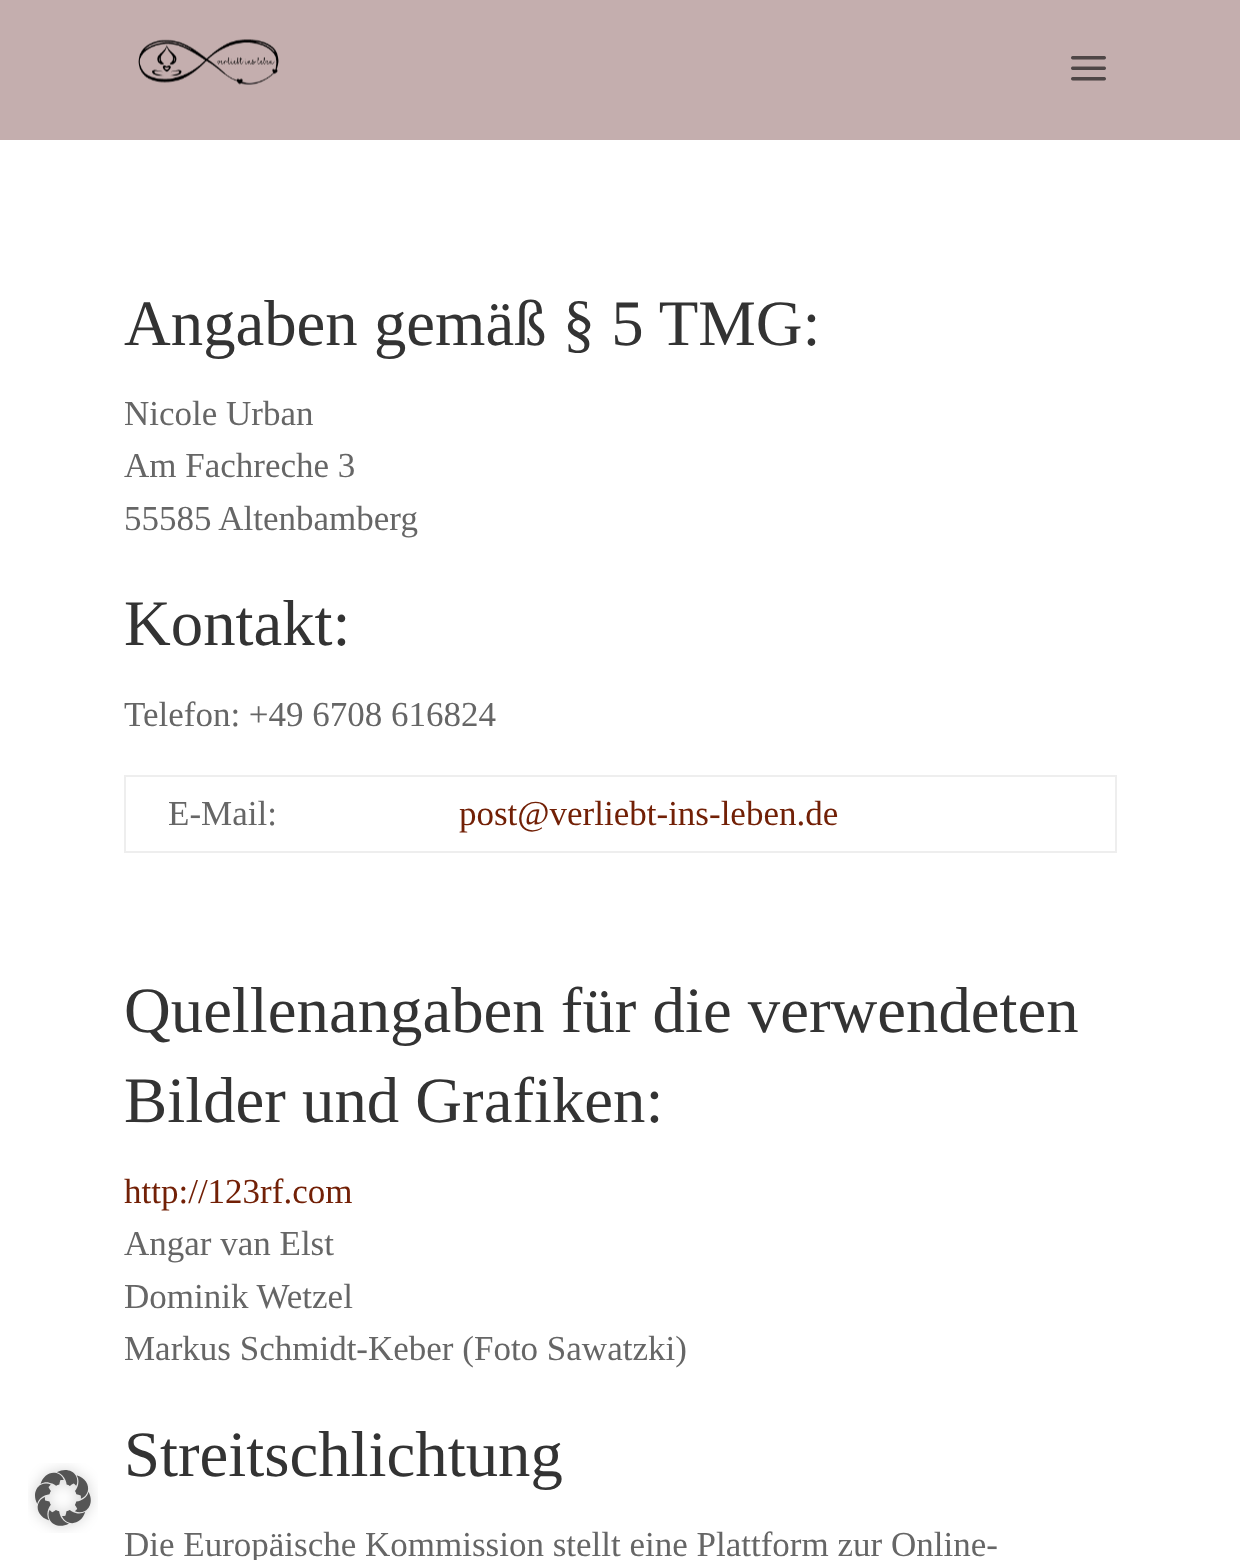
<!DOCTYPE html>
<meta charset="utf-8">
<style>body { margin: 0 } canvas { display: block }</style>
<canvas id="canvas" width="1240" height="1560"></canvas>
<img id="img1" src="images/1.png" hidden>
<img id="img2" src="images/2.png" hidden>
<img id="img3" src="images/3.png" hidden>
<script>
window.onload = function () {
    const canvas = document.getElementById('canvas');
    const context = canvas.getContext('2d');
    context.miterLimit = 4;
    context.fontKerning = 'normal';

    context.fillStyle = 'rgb(255, 255, 255)';
    context.fillRect(0, 0, 1240, 1560);
    context.drawImage(document.getElementById('img1'), 28, 1463, 70, 70);
    context.fillStyle = 'rgb(196, 174, 174)';
    context.fillRect(0, 0, 1240, 140);
    context.drawImage(document.getElementById('img2'), 138, 39, 141, 46);
    context.drawImage(document.getElementById('img3'), 1071, 56, 35, 25);
    context.fillStyle = 'rgb(238, 238, 238)';
    context.fillRect(124, 775, 993, 2);
    context.fillRect(1115, 775, 2, 77);
    context.fillRect(124, 851, 993, 2);
    context.fillRect(124, 775, 2, 77);
    context.font = '64.75px Liberation Serif';
    context.fillStyle = 'rgb(51, 51, 51)';
    context.fillText('Angaben gemäß § 5 TMG:', 124, 345);
    context.font = '35px Liberation Serif';
    context.fillStyle = 'rgb(102, 102, 102)';
    context.fillText('Nicole Urban', 124, 425);
    context.fillText('Am Fachreche 3', 124, 477);
    context.fillText('55585 Altenbamberg', 124, 530);
    context.font = '64.75px Liberation Serif';
    context.fillStyle = 'rgb(51, 51, 51)';
    context.fillText('Kontakt:', 124, 645);
    context.font = '35px Liberation Serif';
    context.fillStyle = 'rgb(102, 102, 102)';
    context.fillText('Telefon: +49 6708 616824', 124, 726);
    context.fillText('E-Mail:', 168, 825);
    context.fillStyle = 'rgb(114, 32, 6)';
    context.fillText('post@verliebt-ins-leben.de', 459, 825);
    context.font = '64.75px Liberation Serif';
    context.fillStyle = 'rgb(51, 51, 51)';
    context.fillText('Quellenangaben für die verwendeten', 124, 1032);
    context.fillText('Bilder und Grafiken:', 124, 1122);
    context.font = '35px Liberation Serif';
    context.fillStyle = 'rgb(114, 32, 6)';
    context.fillText('http://123rf.com', 124, 1203);
    context.fillStyle = 'rgb(102, 102, 102)';
    context.fillText('Angar van Elst', 124, 1255);
    context.fillText('Dominik Wetzel', 124, 1308);
    context.fillText('Markus Schmidt-Keber (Foto Sawatzki)', 124, 1360);
    context.font = '64.75px Liberation Serif';
    context.fillStyle = 'rgb(51, 51, 51)';
    context.fillText('Streitschlichtung', 124, 1476);
    context.font = '35px Liberation Serif';
    context.fillStyle = 'rgb(102, 102, 102)';
    context.fillText('Die Europäische Kommission stellt eine Plattform zur Online-', 124, 1556);
};
</script>
